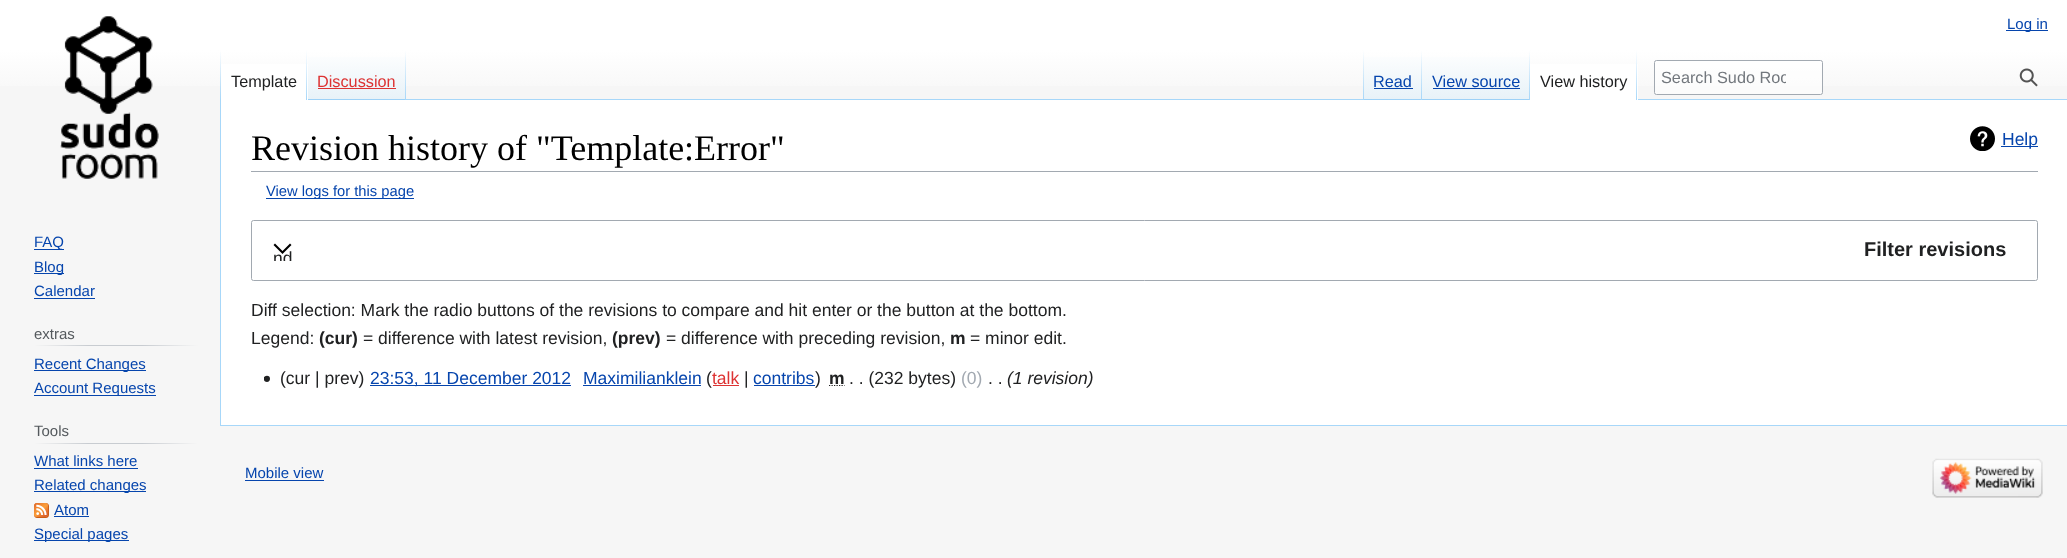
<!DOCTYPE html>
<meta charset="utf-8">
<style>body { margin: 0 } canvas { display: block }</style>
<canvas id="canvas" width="2067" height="558"></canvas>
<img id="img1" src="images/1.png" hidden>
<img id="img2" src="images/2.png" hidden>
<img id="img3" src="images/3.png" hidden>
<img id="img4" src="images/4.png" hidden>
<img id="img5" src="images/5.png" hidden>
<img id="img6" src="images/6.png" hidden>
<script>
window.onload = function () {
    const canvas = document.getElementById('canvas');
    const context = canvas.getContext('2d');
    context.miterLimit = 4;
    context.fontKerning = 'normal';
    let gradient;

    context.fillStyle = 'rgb(246, 246, 246)';
    context.fillRect(0, 0, 2067, 558);
    gradient = context.createLinearGradient(1034, 0, 1034, 100);
    gradient.addColorStop(0.5, 'rgb(255, 255, 255)');
    gradient.addColorStop(1, 'rgb(246, 246, 246)');
    context.fillStyle = gradient;
    context.fillRect(0, 0, 2067, 86);
    context.fillStyle = 'rgb(6, 69, 173)';
    context.fillRect(2006, 30, 42, 1);
    context.fillStyle = 'rgb(167, 215, 249)';
    context.fillRect(220, 425, 1847, 1);
    context.fillRect(220, 99, 1, 327);
    gradient = context.createLinearGradient(221, 50, 221, 100);
    gradient.addColorStop(0, 'rgba(167, 215, 249, 0)');
    gradient.addColorStop(1, 'rgb(167, 215, 249)');
    context.fillStyle = gradient;
    context.fillRect(220, 50, 1, 50);
    context.fillStyle = 'rgb(255, 255, 255)';
    context.fillRect(221, 64, 87, 36);
    gradient = context.createLinearGradient(307, 50, 307, 100);
    gradient.addColorStop(0, 'rgb(255, 255, 255)');
    gradient.addColorStop(1, 'rgb(167, 215, 249)');
    context.fillStyle = gradient;
    context.fillRect(306, 50, 1, 50);
    gradient = context.createLinearGradient(357, 100, 357, 50);
    gradient.addColorStop(0, 'rgb(119, 193, 246)');
    gradient.addColorStop(0.03, 'rgb(232, 242, 248)');
    gradient.addColorStop(1, 'rgb(255, 255, 255)');
    context.fillStyle = gradient;
    context.fillRect(308, 57, 98, 43);
    gradient = context.createLinearGradient(406, 50, 406, 100);
    gradient.addColorStop(0, 'rgba(167, 215, 249, 0)');
    gradient.addColorStop(1, 'rgb(167, 215, 249)');
    context.fillStyle = gradient;
    context.fillRect(405, 50, 1, 50);
    context.fillStyle = 'rgb(221, 51, 51)';
    context.fillRect(318, 88, 78, 1);
    context.fillStyle = 'rgb(167, 215, 249)';
    context.fillRect(406, 99, 1661, 1);
    gradient = context.createLinearGradient(1363, 50, 1363, 100);
    gradient.addColorStop(0, 'rgba(167, 215, 249, 0)');
    gradient.addColorStop(1, 'rgb(167, 215, 249)');
    context.fillStyle = gradient;
    context.fillRect(1363, 50, 1, 50);
    gradient = context.createLinearGradient(1393, 100, 1393, 50);
    gradient.addColorStop(0, 'rgb(119, 193, 246)');
    gradient.addColorStop(0.03, 'rgb(232, 242, 248)');
    gradient.addColorStop(1, 'rgb(255, 255, 255)');
    context.fillStyle = gradient;
    context.fillRect(1364, 57, 59, 43);
    gradient = context.createLinearGradient(1422, 50, 1422, 100);
    gradient.addColorStop(0, 'rgba(167, 215, 249, 0)');
    gradient.addColorStop(1, 'rgb(167, 215, 249)');
    context.fillStyle = gradient;
    context.fillRect(1421, 50, 1, 50);
    context.fillStyle = 'rgb(6, 69, 173)';
    context.fillRect(1374, 88, 39, 1);
    gradient = context.createLinearGradient(1476, 100, 1476, 50);
    gradient.addColorStop(0, 'rgb(119, 193, 246)');
    gradient.addColorStop(0.03, 'rgb(232, 242, 248)');
    gradient.addColorStop(1, 'rgb(255, 255, 255)');
    context.fillStyle = gradient;
    context.fillRect(1423, 57, 107, 43);
    gradient = context.createLinearGradient(1529, 50, 1529, 100);
    gradient.addColorStop(0, 'rgba(167, 215, 249, 0)');
    gradient.addColorStop(1, 'rgb(167, 215, 249)');
    context.fillStyle = gradient;
    context.fillRect(1529, 50, 1, 50);
    context.fillStyle = 'rgb(6, 69, 173)';
    context.fillRect(1433, 88, 87, 1);
    context.fillStyle = 'rgb(255, 255, 255)';
    context.fillRect(1530, 64, 108, 36);
    gradient = context.createLinearGradient(1637, 50, 1637, 100);
    gradient.addColorStop(0, 'rgb(255, 255, 255)');
    gradient.addColorStop(1, 'rgb(167, 215, 249)');
    context.fillStyle = gradient;
    context.fillRect(1636, 50, 1, 50);
    context.fillStyle = 'rgba(255, 255, 255, 0.5)';
    context.beginPath();
    context.roundRect(1654.5, 60.5, 168, 34, 2);
    context.fill();
    context.strokeStyle = 'rgb(162, 169, 177)';
    context.stroke();
    context.drawImage(document.getElementById('img1'), 2019, 68, 19, 19);
    context.drawImage(document.getElementById('img2'), 60, 16, 99, 163);
    context.fillStyle = 'rgb(6, 69, 173)';
    context.fillRect(34, 249, 30, 1);
    context.fillRect(34, 273, 30, 1);
    context.fillRect(34, 298, 61, 1);
    gradient = context.createLinearGradient(34, 346, 198, 346);
    gradient.addColorStop(0, 'rgb(246, 246, 246)');
    gradient.addColorStop(0.33, 'rgb(200, 204, 209)');
    gradient.addColorStop(0.66, 'rgb(200, 204, 209)');
    gradient.addColorStop(1, 'rgb(246, 246, 246)');
    context.fillStyle = gradient;
    context.fillRect(34, 345, 164, 1);
    context.fillStyle = 'rgb(6, 69, 173)';
    context.fillRect(34, 370, 112, 1);
    context.fillRect(34, 395, 122, 1);
    gradient = context.createLinearGradient(34, 443, 198, 443);
    gradient.addColorStop(0, 'rgb(246, 246, 246)');
    gradient.addColorStop(0.33, 'rgb(200, 204, 209)');
    gradient.addColorStop(0.66, 'rgb(200, 204, 209)');
    gradient.addColorStop(1, 'rgb(246, 246, 246)');
    context.fillStyle = gradient;
    context.fillRect(34, 443, 164, 1);
    context.fillStyle = 'rgb(6, 69, 173)';
    context.fillRect(34, 468, 104, 1);
    context.fillRect(34, 491, 112, 1);
    context.drawImage(document.getElementById('img3'), 34, 503, 15, 15);
    context.fillRect(54, 516, 35, 1);
    context.fillRect(34, 540, 95, 1);
    context.fillStyle = 'rgb(255, 255, 255)';
    context.fillRect(221, 100, 1846, 325);
    context.fillStyle = 'rgb(162, 169, 177)';
    context.fillRect(251, 171, 1787, 1);
    context.drawImage(document.getElementById('img4'), 1970, 126, 25, 25);
    context.fillStyle = 'rgb(6, 69, 173)';
    context.fillRect(2001, 146, 37, 1);
    context.fillRect(266, 198, 148, 1);
    context.beginPath();
    context.roundRect(251.5, 220.5, 1786, 60, 2);
    context.stroke();
    context.fillStyle = 'rgb(0, 0, 0)';
    context.beginPath();
    context.moveTo(290, 243.5);
    context.lineTo(282.5, 251);
    context.lineTo(275, 243.5);
    context.lineTo(273.5, 245);
    context.lineTo(282.5, 254);
    context.lineTo(291.5, 245);
    context.closePath();
    context.fill();
    context.drawImage(document.getElementById('img5'), 264, 375, 6, 7);
    context.fillStyle = 'rgb(6, 69, 173)';
    context.fillRect(370, 385, 201, 1);
    context.fillRect(583, 385, 118, 1);
    context.fillStyle = 'rgb(221, 51, 51)';
    context.fillRect(713, 385, 26, 1);
    context.fillStyle = 'rgb(6, 69, 173)';
    context.fillRect(754, 385, 61, 1);
    context.beginPath();
    context.moveTo(829, 385.5);
    context.lineTo(844.5, 385.5);
    context.strokeStyle = 'rgb(32, 33, 34)';
    context.lineWidth = 1.2;
    context.setLineDash([1.25, 1.25]);
    context.stroke();
    context.fillRect(245, 480, 79, 1);
    context.drawImage(document.getElementById('img6'), 1932, 458, 111, 40);
    context.font = '15px Liberation Sans';
    context.fillText('Log in', 2007, 29);
    context.font = '16.25px Liberation Sans';
    context.fillStyle = 'rgb(32, 33, 34)';
    context.fillText('Template', 231, 87);
    context.fillStyle = 'rgb(221, 51, 51)';
    context.fillText('Discussion', 317, 87);
    context.fillStyle = 'rgb(6, 69, 173)';
    context.fillText('Read', 1373, 87);
    context.fillText('View source', 1432, 87);
    context.fillStyle = 'rgb(32, 33, 34)';
    context.fillText('View history', 1540, 87);
    context.save();
    context.beginPath();
    context.rect(1661, 69, 125, 19);
    context.clip();
    context.fillStyle = 'rgb(114, 119, 125)';
    context.fillText('Search Sudo Roo', 1661, 83);
    context.restore();
    context.font = '15px Liberation Sans';
    context.fillStyle = 'rgb(6, 69, 173)';
    context.fillText('FAQ', 34, 247);
    context.fillText('Blog', 34, 272);
    context.fillText('Calendar', 34, 296);
    context.fillStyle = 'rgb(84, 89, 93)';
    context.fillText('extras', 34, 339);
    context.fillStyle = 'rgb(6, 69, 173)';
    context.fillText('Recent Changes', 34, 369);
    context.fillText('Account Requests', 34, 393);
    context.fillStyle = 'rgb(84, 89, 93)';
    context.fillText('Tools', 34, 436);
    context.fillStyle = 'rgb(6, 69, 173)';
    context.fillText('What links here', 34, 466);
    context.fillText('Related changes', 34, 490);
    context.fillText('Atom', 54, 515);
    context.fillText('Special pages', 34, 539);
    context.font = '36px Liberation Serif';
    context.fillStyle = 'rgb(0, 0, 0)';
    context.fillText('Revision history of "Template:Error"', 251, 160);
    context.font = '17.5px Liberation Sans';
    context.fillStyle = 'rgb(6, 69, 173)';
    context.fillText('Help', 2002, 145);
    context.font = '14.75px Liberation Sans';
    context.fillText('View logs for this page', 266, 196);
    context.save();
    context.beginPath();
    context.rect(273, 236, 20, 25);
    context.clip();
    context.font = '17.5px Liberation Sans';
    context.fillStyle = 'rgb(32, 33, 34)';
    context.fillText('nd', 273, 264);
    context.restore();
    context.font = 'bold 20px Liberation Sans';
    context.fillStyle = 'rgb(32, 33, 34)';
    context.fillText('Filter revisions', 1864, 256);
    context.font = '17.5px Liberation Sans';
    context.fillText('Diff selection: Mark the radio buttons of the revisions to compare and hit enter or the button at the bottom.', 251, 316);
    context.fillText('Legend:', 251, 344);
    context.font = 'bold 17.5px Liberation Sans';
    context.fillText('(cur)', 319, 344);
    context.font = '17.5px Liberation Sans';
    context.fillText('= difference with latest revision,', 363, 344);
    context.font = 'bold 17.5px Liberation Sans';
    context.fillText('(prev)', 612, 344);
    context.font = '17.5px Liberation Sans';
    context.fillText('= difference with preceding revision,', 666, 344);
    context.font = 'bold 17.5px Liberation Sans';
    context.fillText('m', 950, 344);
    context.font = '17.5px Liberation Sans';
    context.fillText('= minor edit.', 970, 344);
    context.fillText('(cur | prev)', 280, 384);
    context.fillStyle = 'rgb(6, 69, 173)';
    context.fillText('23:53, 11 December 2012', 370, 384);
    context.fillText('Maximilianklein', 583, 384);
    context.fillStyle = 'rgb(32, 33, 34)';
    context.fillText('(', 706, 384);
    context.fillStyle = 'rgb(221, 51, 51)';
    context.fillText('talk', 712, 384);
    context.fillStyle = 'rgb(32, 33, 34)';
    context.fillText('|', 744, 384);
    context.fillStyle = 'rgb(6, 69, 173)';
    context.fillText('contribs', 753, 384);
    context.fillStyle = 'rgb(32, 33, 34)';
    context.fillText(')', 815, 384);
    context.font = 'bold 17.5px Liberation Sans';
    context.fillText('m', 829, 384);
    context.font = '17.5px Liberation Sans';
    context.fillText('. . (232 bytes)', 849, 384);
    context.fillStyle = 'rgb(162, 169, 177)';
    context.fillText('(0)', 961, 384);
    context.fillStyle = 'rgb(32, 33, 34)';
    context.fillText('. .', 988, 384);
    context.font = 'italic 17.5px Liberation Sans';
    context.fillText('(1 revision)', 1007, 384);
    context.font = '15px Liberation Sans';
    context.fillStyle = 'rgb(6, 69, 173)';
    context.fillText('Mobile view', 245, 478);
};
</script>
